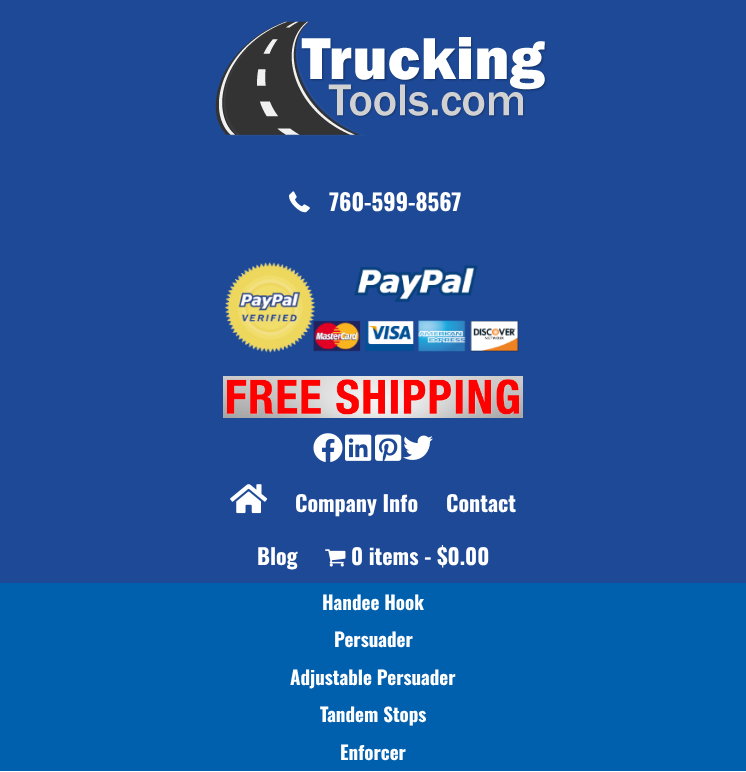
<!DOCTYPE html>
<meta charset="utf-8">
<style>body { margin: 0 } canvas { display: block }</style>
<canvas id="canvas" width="746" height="772"></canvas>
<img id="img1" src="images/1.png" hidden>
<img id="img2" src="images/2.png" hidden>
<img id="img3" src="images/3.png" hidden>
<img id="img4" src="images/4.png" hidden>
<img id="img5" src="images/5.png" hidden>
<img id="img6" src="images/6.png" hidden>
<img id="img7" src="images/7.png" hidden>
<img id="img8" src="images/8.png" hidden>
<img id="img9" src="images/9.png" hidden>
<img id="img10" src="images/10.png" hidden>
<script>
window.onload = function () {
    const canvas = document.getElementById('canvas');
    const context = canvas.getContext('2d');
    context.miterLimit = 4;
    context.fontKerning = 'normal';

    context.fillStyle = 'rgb(30, 73, 150)';
    context.fillRect(0, 0, 746, 772);
    context.drawImage(document.getElementById('img1'), 215, 21, 332, 115);
    context.drawImage(document.getElementById('img2'), 289, 191, 21, 22);
    context.drawImage(document.getElementById('img3'), 224, 262, 295, 91);
    context.drawImage(document.getElementById('img4'), 223, 376, 300, 42);
    context.drawImage(document.getElementById('img5'), 313, 433, 30, 29);
    context.drawImage(document.getElementById('img6'), 345, 434, 27, 27);
    context.drawImage(document.getElementById('img7'), 375, 434, 27, 27);
    context.drawImage(document.getElementById('img8'), 403, 435, 30, 25);
    context.drawImage(document.getElementById('img9'), 230, 484, 38, 30);
    context.drawImage(document.getElementById('img10'), 325, 549, 21, 18);
    context.fillStyle = 'rgb(0, 96, 174)';
    context.fillRect(0, 583, 746, 188);
    context.fillStyle = 'rgb(255, 255, 255)';
    context.fillRect(0, 771, 746, 1);
    context.font = 'bold 23px Oswald';
    context.fillText('760-599-8567', 329, 211);
    context.font = 'bold 22px Oswald';
    context.fillText('Company Info', 295, 512);
    context.fillText('Contact', 446, 512);
    context.fillText('Blog', 257, 565);
    context.fillText('0 items - $0.00', 351, 565);
    context.font = 'bold 19px Oswald';
    context.fillText('Handee Hook', 322, 610);
    context.fillText('Persuader', 334, 647);
    context.fillText('Adjustable Persuader', 290, 685);
    context.fillText('Tandem Stops', 320, 722);
    context.fillText('Enforcer', 340, 760);
};
</script>
